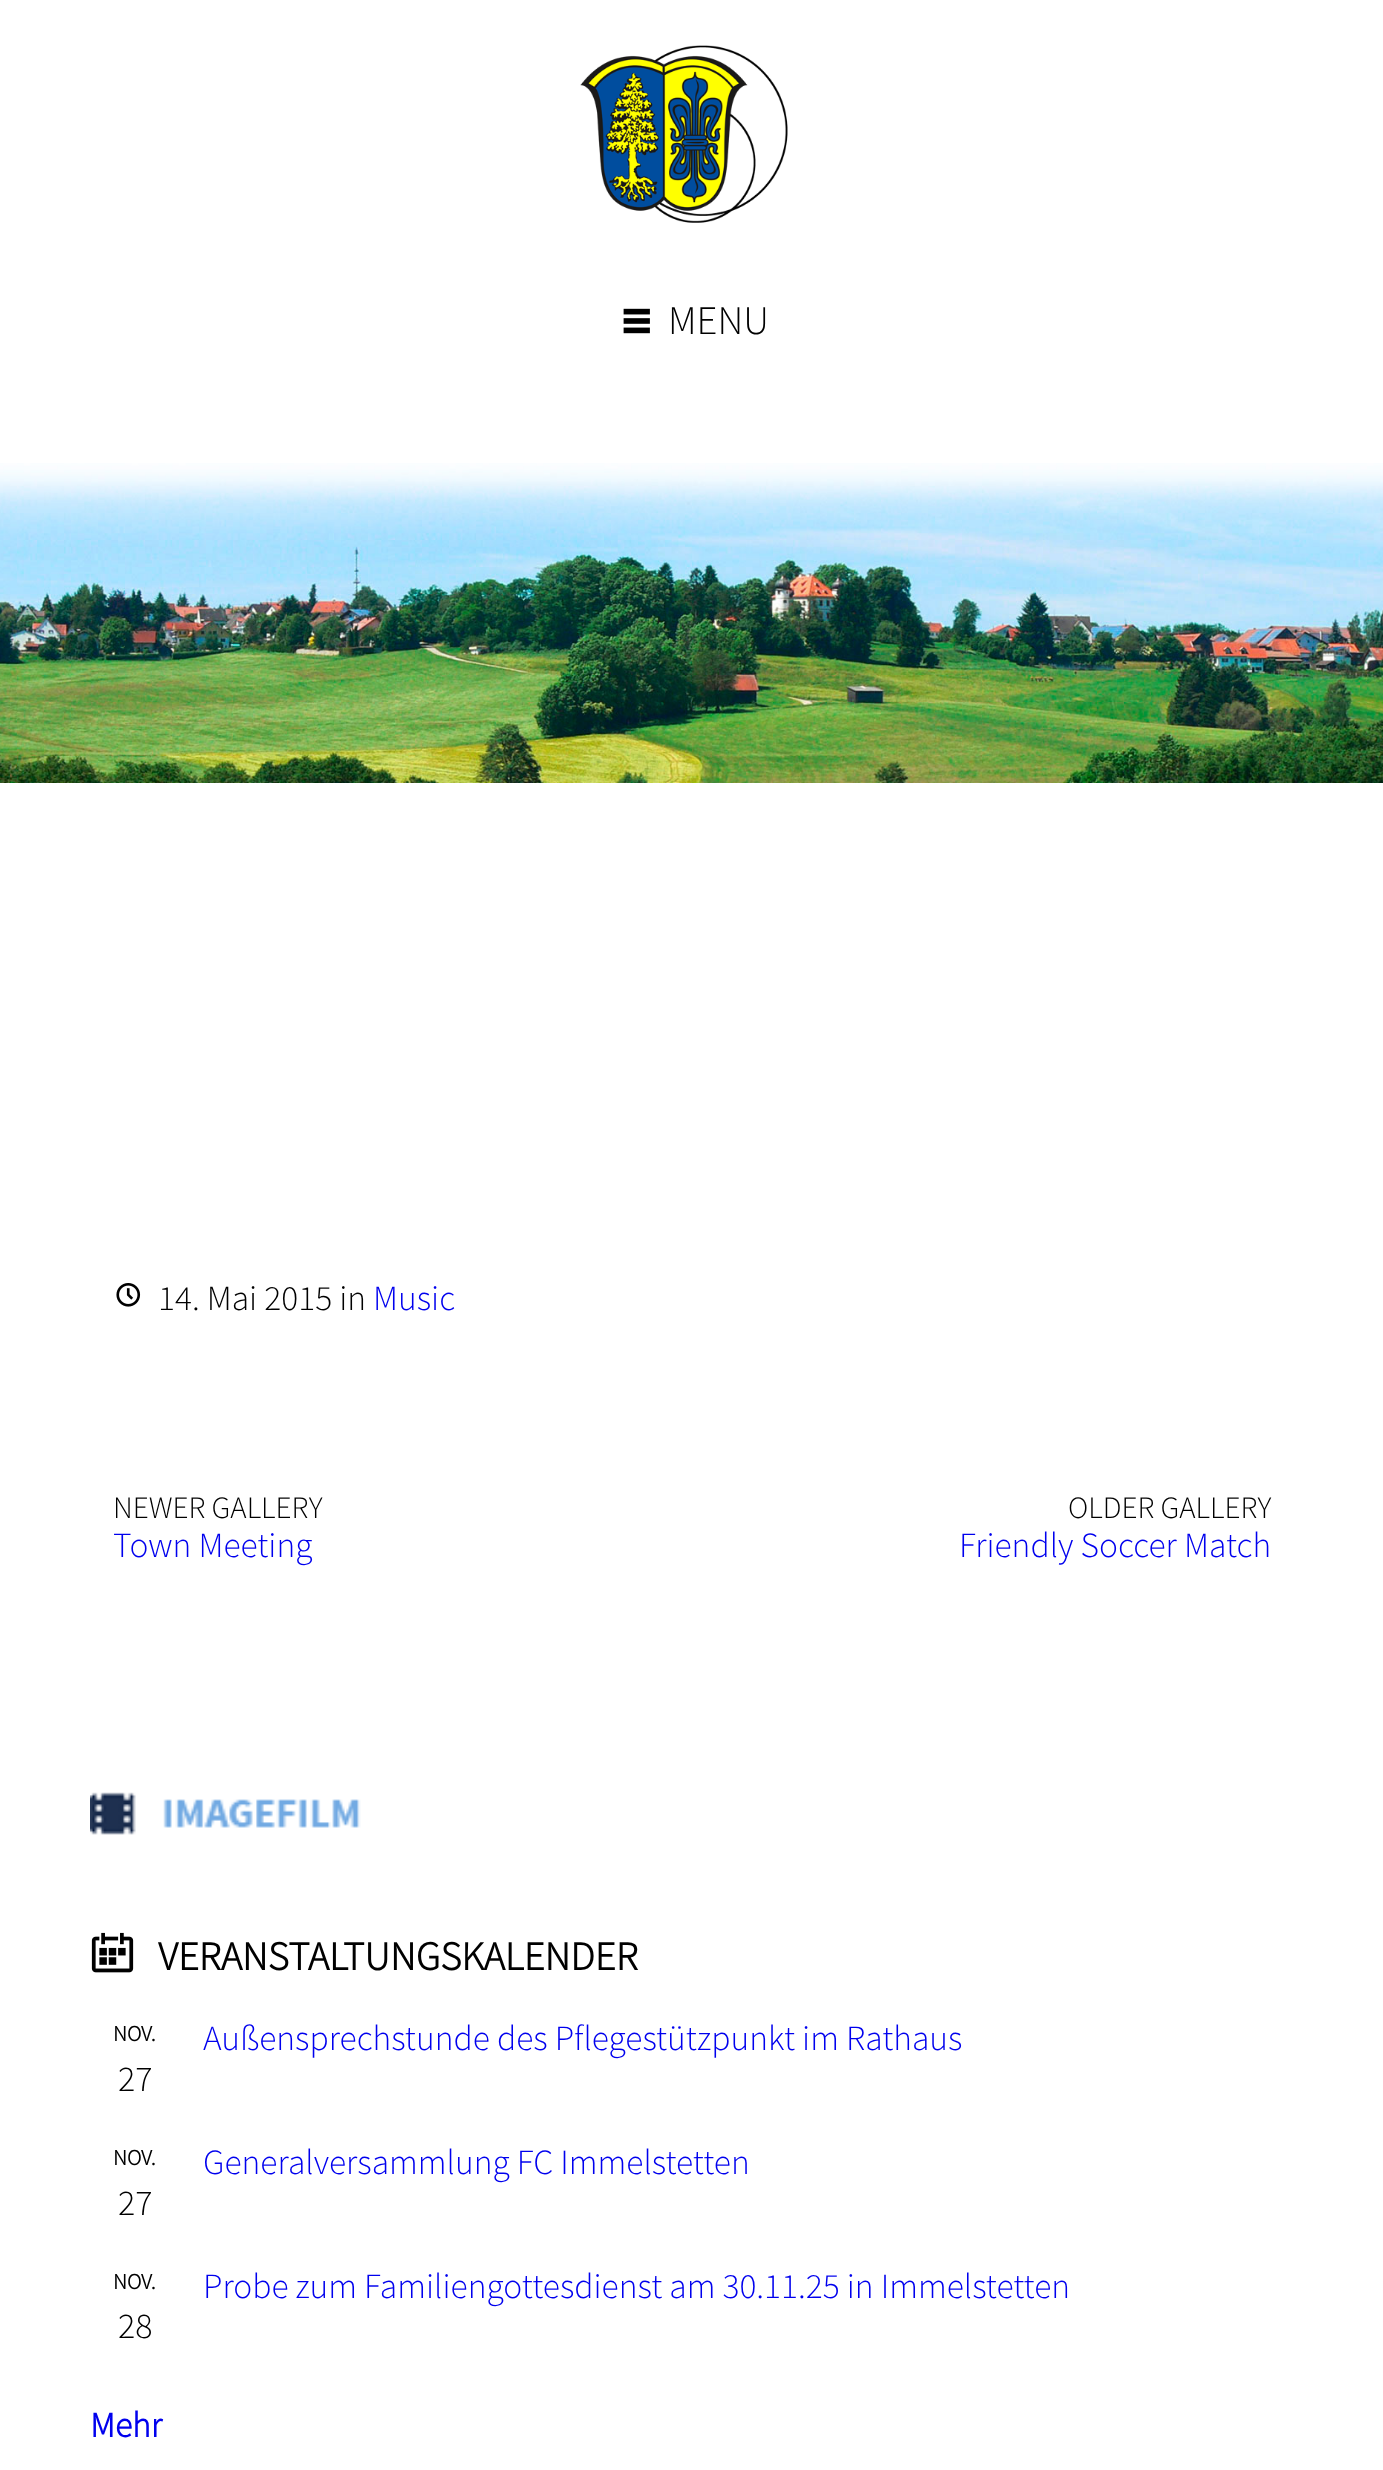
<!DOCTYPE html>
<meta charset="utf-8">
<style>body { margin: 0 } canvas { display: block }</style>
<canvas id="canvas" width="1383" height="2470"></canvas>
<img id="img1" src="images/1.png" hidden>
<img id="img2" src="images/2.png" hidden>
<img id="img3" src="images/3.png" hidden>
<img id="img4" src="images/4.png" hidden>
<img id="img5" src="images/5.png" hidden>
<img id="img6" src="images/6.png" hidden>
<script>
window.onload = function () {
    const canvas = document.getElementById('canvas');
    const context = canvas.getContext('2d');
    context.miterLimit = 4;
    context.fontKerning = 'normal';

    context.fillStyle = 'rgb(255, 255, 255)';
    context.fillRect(0, 0, 1383, 2470);
    context.drawImage(document.getElementById('img1'), 580, 45, 208, 178);
    context.drawImage(document.getElementById('img2'), 623, 308, 27, 26);
    context.drawImage(document.getElementById('img3'), 0, 463, 1383, 320);
    context.drawImage(document.getElementById('img4'), 116, 1283, 25, 24);
    context.drawImage(document.getElementById('img5'), 90, 1792, 271, 43);
    context.drawImage(document.getElementById('img6'), 91, 1932, 43, 41);
    context.font = '300 40.5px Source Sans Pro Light';
    context.fillStyle = 'rgb(0, 0, 0)';
    context.fillText('MENU', 668, 334);
    context.font = '300 35.4px Source Sans Pro Light';
    context.fillText('14. Mai 2015 in', 158, 1310);
    context.fillStyle = 'rgb(0, 0, 238)';
    context.fillText('Music', 373, 1310);
    context.font = '300 31px Source Sans Pro Light';
    context.fillStyle = 'rgb(0, 0, 0)';
    context.fillText('NEWER GALLERY', 113, 1518);
    context.font = '300 35.4px Source Sans Pro Light';
    context.fillStyle = 'rgb(0, 0, 238)';
    context.fillText('Town Meeting', 113, 1557);
    context.font = '300 31px Source Sans Pro Light';
    context.fillStyle = 'rgb(0, 0, 0)';
    context.fillText('OLDER GALLERY', 1068, 1518);
    context.font = '300 35.4px Source Sans Pro Light';
    context.fillStyle = 'rgb(0, 0, 238)';
    context.fillText('Friendly Soccer Match', 959, 1557);
    context.font = 'bold 40.5px Source Sans Pro Light';
    context.fillStyle = 'rgb(0, 0, 0)';
    context.fillText('VERANSTALTUNGSKALENDER', 158, 1970);
    context.font = 'bold 22px Source Sans Pro Light';
    context.fillText('NOV.', 113, 2041);
    context.font = '300 36px Source Sans Pro Light';
    context.fillText('27', 118, 2091);
    context.font = '300 35.4px Source Sans Pro Light';
    context.fillStyle = 'rgb(0, 0, 238)';
    context.fillText('Außensprechstunde des Pflegestützpunkt im Rathaus', 203, 2050);
    context.font = 'bold 22px Source Sans Pro Light';
    context.fillStyle = 'rgb(0, 0, 0)';
    context.fillText('NOV.', 113, 2165);
    context.font = '300 36px Source Sans Pro Light';
    context.fillText('27', 118, 2215);
    context.font = '300 35.4px Source Sans Pro Light';
    context.fillStyle = 'rgb(0, 0, 238)';
    context.fillText('Generalversammlung FC Immelstetten', 203, 2174);
    context.font = 'bold 22px Source Sans Pro Light';
    context.fillStyle = 'rgb(0, 0, 0)';
    context.fillText('NOV.', 113, 2289);
    context.font = '300 36px Source Sans Pro Light';
    context.fillText('28', 118, 2338);
    context.font = '300 35.4px Source Sans Pro Light';
    context.fillStyle = 'rgb(0, 0, 238)';
    context.fillText('Probe zum Familiengottesdienst am 30.11.25 in Immelstetten', 203, 2298);
    context.font = 'bold 35.4px Source Sans Pro Light';
    context.fillText('Mehr', 90, 2437);
};
</script>
